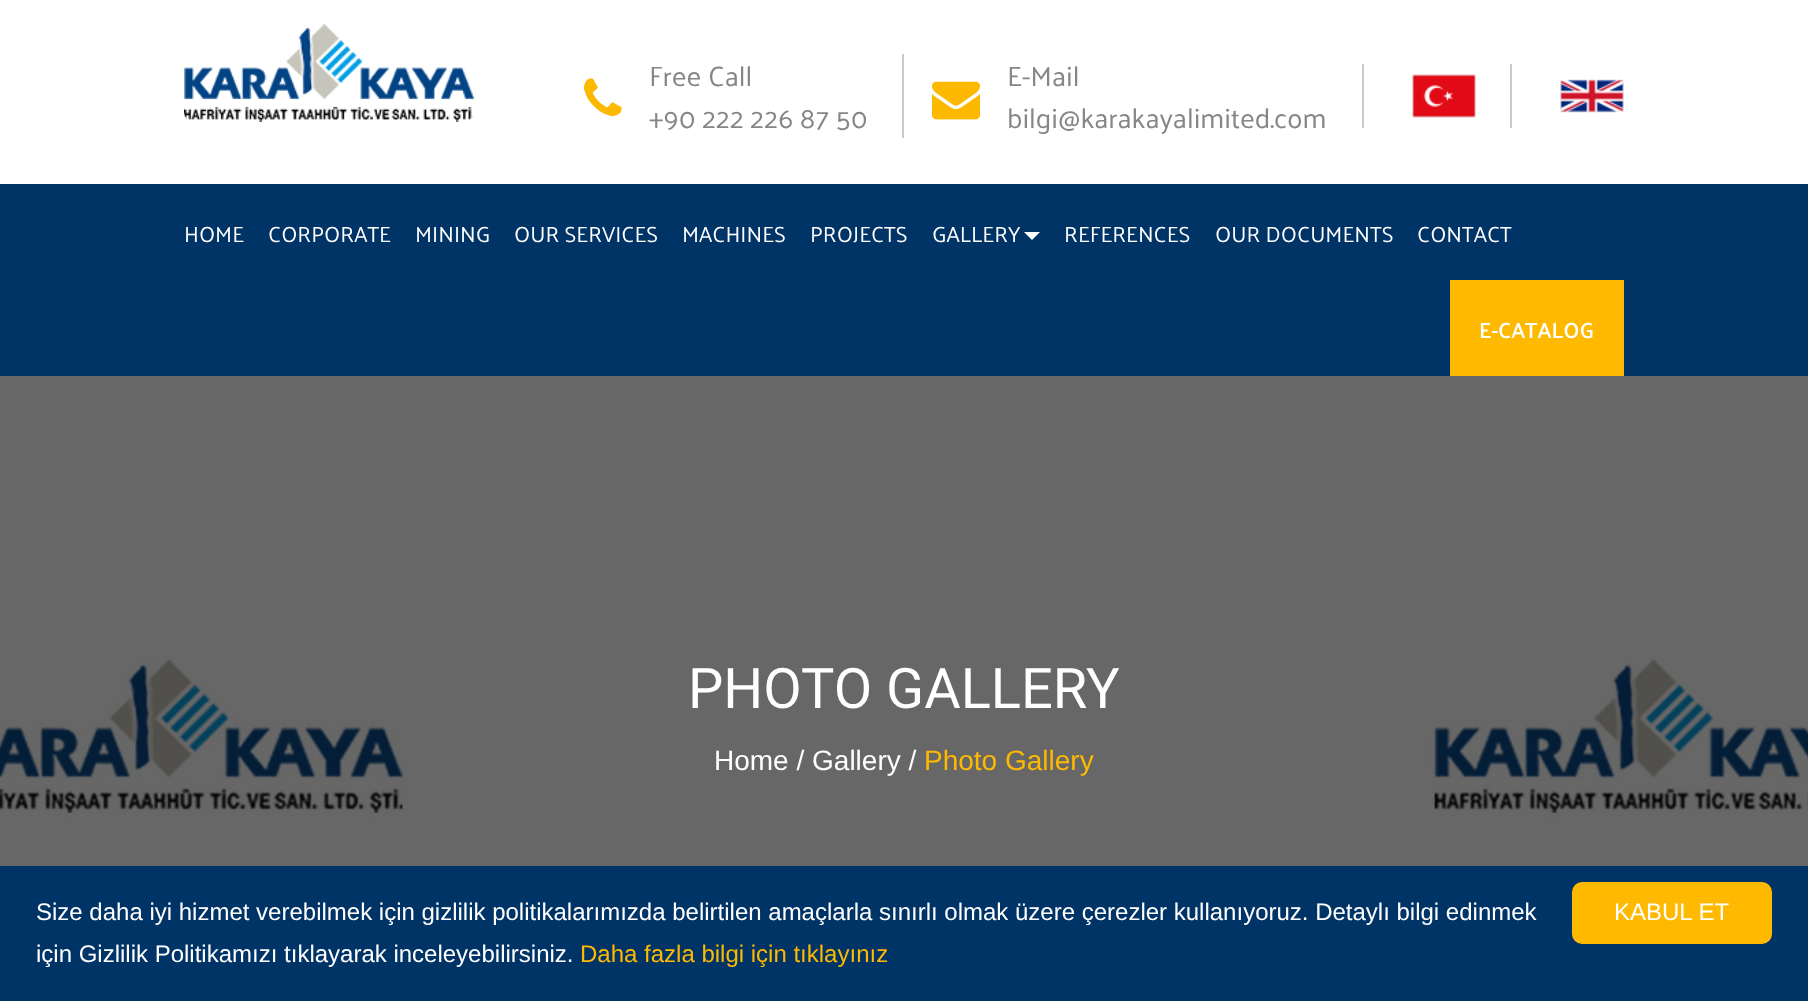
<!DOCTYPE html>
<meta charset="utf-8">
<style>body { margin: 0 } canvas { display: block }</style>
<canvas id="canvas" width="1808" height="1001"></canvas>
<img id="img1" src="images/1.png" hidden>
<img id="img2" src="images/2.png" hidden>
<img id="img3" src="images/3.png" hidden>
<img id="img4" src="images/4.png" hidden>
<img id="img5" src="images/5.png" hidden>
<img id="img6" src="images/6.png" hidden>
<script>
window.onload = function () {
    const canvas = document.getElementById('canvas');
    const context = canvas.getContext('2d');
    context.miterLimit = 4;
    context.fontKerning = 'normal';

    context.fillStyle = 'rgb(255, 255, 255)';
    context.fillRect(0, 0, 1808, 1001);
    context.drawImage(document.getElementById('img1'), 184, 24, 290, 98);
    context.drawImage(document.getElementById('img2'), 584, 78, 38, 38);
    context.fillStyle = 'rgb(204, 204, 204)';
    context.fillRect(902, 54, 2, 84);
    context.drawImage(document.getElementById('img3'), 932, 81, 48, 39);
    context.fillRect(1362, 64, 2, 64);
    context.drawImage(document.getElementById('img4'), 1412, 74, 64, 44);
    context.fillRect(1510, 64, 2, 64);
    context.drawImage(document.getElementById('img5'), 1560, 79, 64, 34);
    context.fillStyle = 'rgb(0, 51, 102)';
    context.fillRect(0, 184, 1808, 192);
    context.fillStyle = 'rgb(255, 255, 255)';
    context.beginPath();
    context.moveTo(1024, 232);
    context.lineTo(1040, 232);
    context.lineTo(1032, 240);
    context.closePath();
    context.fill();
    context.fillStyle = 'rgb(254, 185, 0)';
    context.fillRect(1450, 280, 174, 96);
    context.drawImage(document.getElementById('img6'), 0, 376, 1808, 490);
    context.fillStyle = 'rgb(0, 51, 102)';
    context.fillRect(0, 866, 1808, 135);
    context.fillStyle = 'rgb(254, 185, 0)';
    context.beginPath();
    context.roundRect(1572, 882, 200, 62, 10);
    context.fill();
    context.font = '28px Palanquin';
    context.fillStyle = 'rgb(134, 134, 134)';
    context.fillText('Free Call', 649, 86);
    context.fillText('+90 222 226 87 50', 649, 128);
    context.fillText('E-Mail', 1007, 86);
    context.fillText('bilgi@karakayalimited.com', 1007, 128);
    context.font = '22px Palanquin';
    context.fillStyle = 'rgb(255, 255, 255)';
    context.fillText('HOME', 184, 242);
    context.fillText('CORPORATE', 268, 242);
    context.fillText('MINING', 415, 242);
    context.fillText('OUR SERVICES', 514, 242);
    context.fillText('MACHINES', 682, 242);
    context.fillText('PROJECTS', 810, 242);
    context.fillText('GALLERY', 932, 242);
    context.fillText('REFERENCES', 1064, 242);
    context.fillText('OUR DOCUMENTS', 1215, 242);
    context.fillText('CONTACT', 1417, 242);
    context.font = '600 22px Palanquin';
    context.fillText('E-CATALOG', 1479, 338);
    context.font = '56px Roboto';
    context.fillText('PHOTO GALLERY', 688, 708);
    context.font = '28px Liberation Sans';
    context.fillText('Home / Gallery /', 714, 770);
    context.fillStyle = 'rgb(254, 185, 0)';
    context.fillText('Photo Gallery', 924, 770);
    context.font = '24px Liberation Sans';
    context.fillStyle = 'rgb(255, 255, 255)';
    context.fillText('Size daha iyi hizmet verebilmek için gizlilik politikalarımızda belirtilen amaçlarla sınırlı olmak üzere çerezler kullanıyoruz. Detaylı bilgi edinmek', 36, 920);
    context.fillText('için Gizlilik Politikamızı tıklayarak inceleyebilirsiniz.', 36, 962);
    context.fillStyle = 'rgb(254, 185, 0)';
    context.fillText('Daha fazla bilgi için tıklayınız', 580, 962);
    context.fillStyle = 'rgb(255, 255, 255)';
    context.fillText('KABUL ET', 1614, 920);
};
</script>
